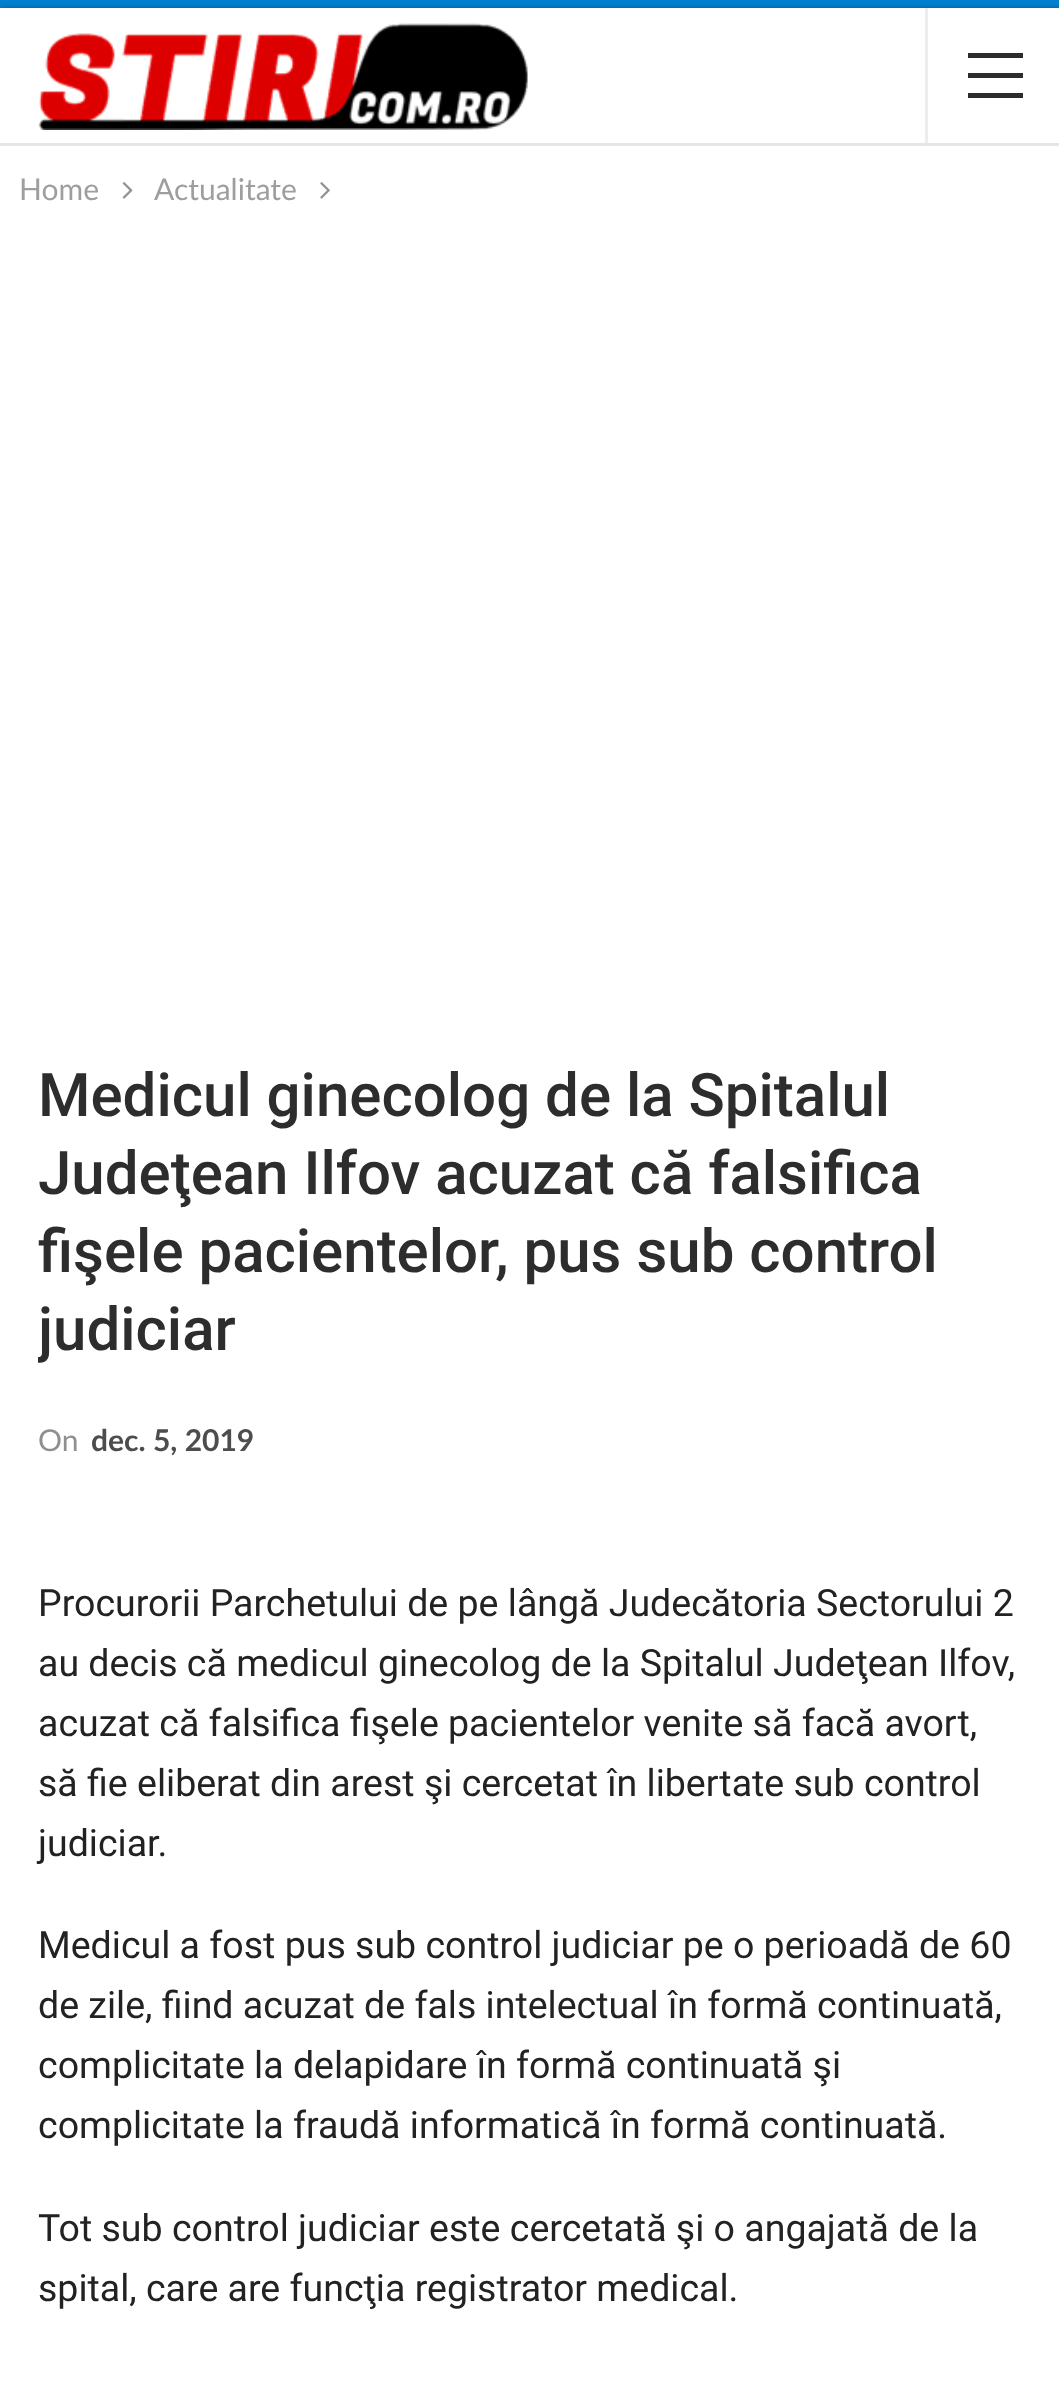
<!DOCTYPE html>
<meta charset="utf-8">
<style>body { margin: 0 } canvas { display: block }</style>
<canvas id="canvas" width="1059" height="2387"></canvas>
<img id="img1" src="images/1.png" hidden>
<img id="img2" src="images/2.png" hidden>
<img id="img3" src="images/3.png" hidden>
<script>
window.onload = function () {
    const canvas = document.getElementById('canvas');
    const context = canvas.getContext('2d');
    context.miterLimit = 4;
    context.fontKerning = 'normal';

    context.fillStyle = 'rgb(0, 128, 206)';
    context.fillRect(0, 0, 1059, 2387);
    context.fillStyle = 'rgba(0, 0, 0, 0.27)';
    context.filter = 'blur(2.5px)';
    context.beginPath();
    context.rect(0, 8, 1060, 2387);
    context.fill();
    context.filter = 'none';
    context.fillStyle = 'rgb(255, 255, 255)';
    context.fillRect(0, 8, 1059, 2379);
    context.fillStyle = 'rgb(229, 229, 229)';
    context.fillRect(0, 143, 1059, 3);
    context.drawImage(document.getElementById('img1'), 38, 23, 490, 107);
    context.fillStyle = 'rgb(237, 237, 237)';
    context.fillRect(925, 8, 3, 135);
    context.fillStyle = 'rgb(44, 44, 44)';
    context.fillRect(968, 73, 55, 5);
    context.fillRect(968, 53, 55, 5);
    context.fillRect(968, 93, 55, 5);
    context.drawImage(document.getElementById('img2'), 122, 182, 11, 17);
    context.drawImage(document.getElementById('img3'), 320, 182, 10, 17);
    context.font = '30px Lato';
    context.fillStyle = 'rgb(158, 158, 158)';
    context.fillText('Home', 19, 200);
    context.fillText('Actualitate', 154, 200);
    context.font = '500 60px Roboto';
    context.fillStyle = 'rgb(45, 45, 45)';
    context.fillText('Medicul ginecolog de la Spitalul', 38, 1116);
    context.fillText('Judeţean Ilfov acuzat că falsifica', 38, 1194);
    context.fillText('fişele pacientelor, pus sub control', 38, 1272);
    context.save();
    context.beginPath();
    context.rect(38, 1060, 985, 413);
    context.clip();
    context.fillText('judiciar', 38, 1350);
    context.restore();
    context.font = '30px Lato';
    context.fillStyle = 'rgb(143, 143, 143)';
    context.fillText('On', 38, 1451);
    context.font = 'bold 30px Lato';
    context.fillStyle = 'rgb(77, 77, 77)';
    context.fillText('dec. 5, 2019', 91, 1451);
    context.font = '37.5px Roboto';
    context.fillStyle = 'rgb(34, 34, 34)';
    context.fillText('Procurorii Parchetului de pe lângă Judecătoria Sectorului 2', 38, 1616);
    context.fillText('au decis că medicul ginecolog de la Spitalul Judeţean Ilfov,', 38, 1676);
    context.fillText('acuzat că falsifica fişele pacientelor venite să facă avort,', 38, 1736);
    context.fillText('să fie eliberat din arest şi cercetat în libertate sub control', 38, 1796);
    context.fillText('judiciar.', 38, 1856);
    context.fillText('Medicul a fost pus sub control judiciar pe o perioadă de 60', 38, 1958);
    context.fillText('de zile, fiind acuzat de fals intelectual în formă continuată,', 38, 2018);
    context.fillText('complicitate la delapidare în formă continuată şi', 38, 2078);
    context.fillText('complicitate la fraudă informatică în formă continuată.', 38, 2138);
    context.fillText('Tot sub control judiciar este cercetată şi o angajată de la', 38, 2241);
    context.fillText('spital, care are funcţia registrator medical.', 38, 2301);
};
</script>
